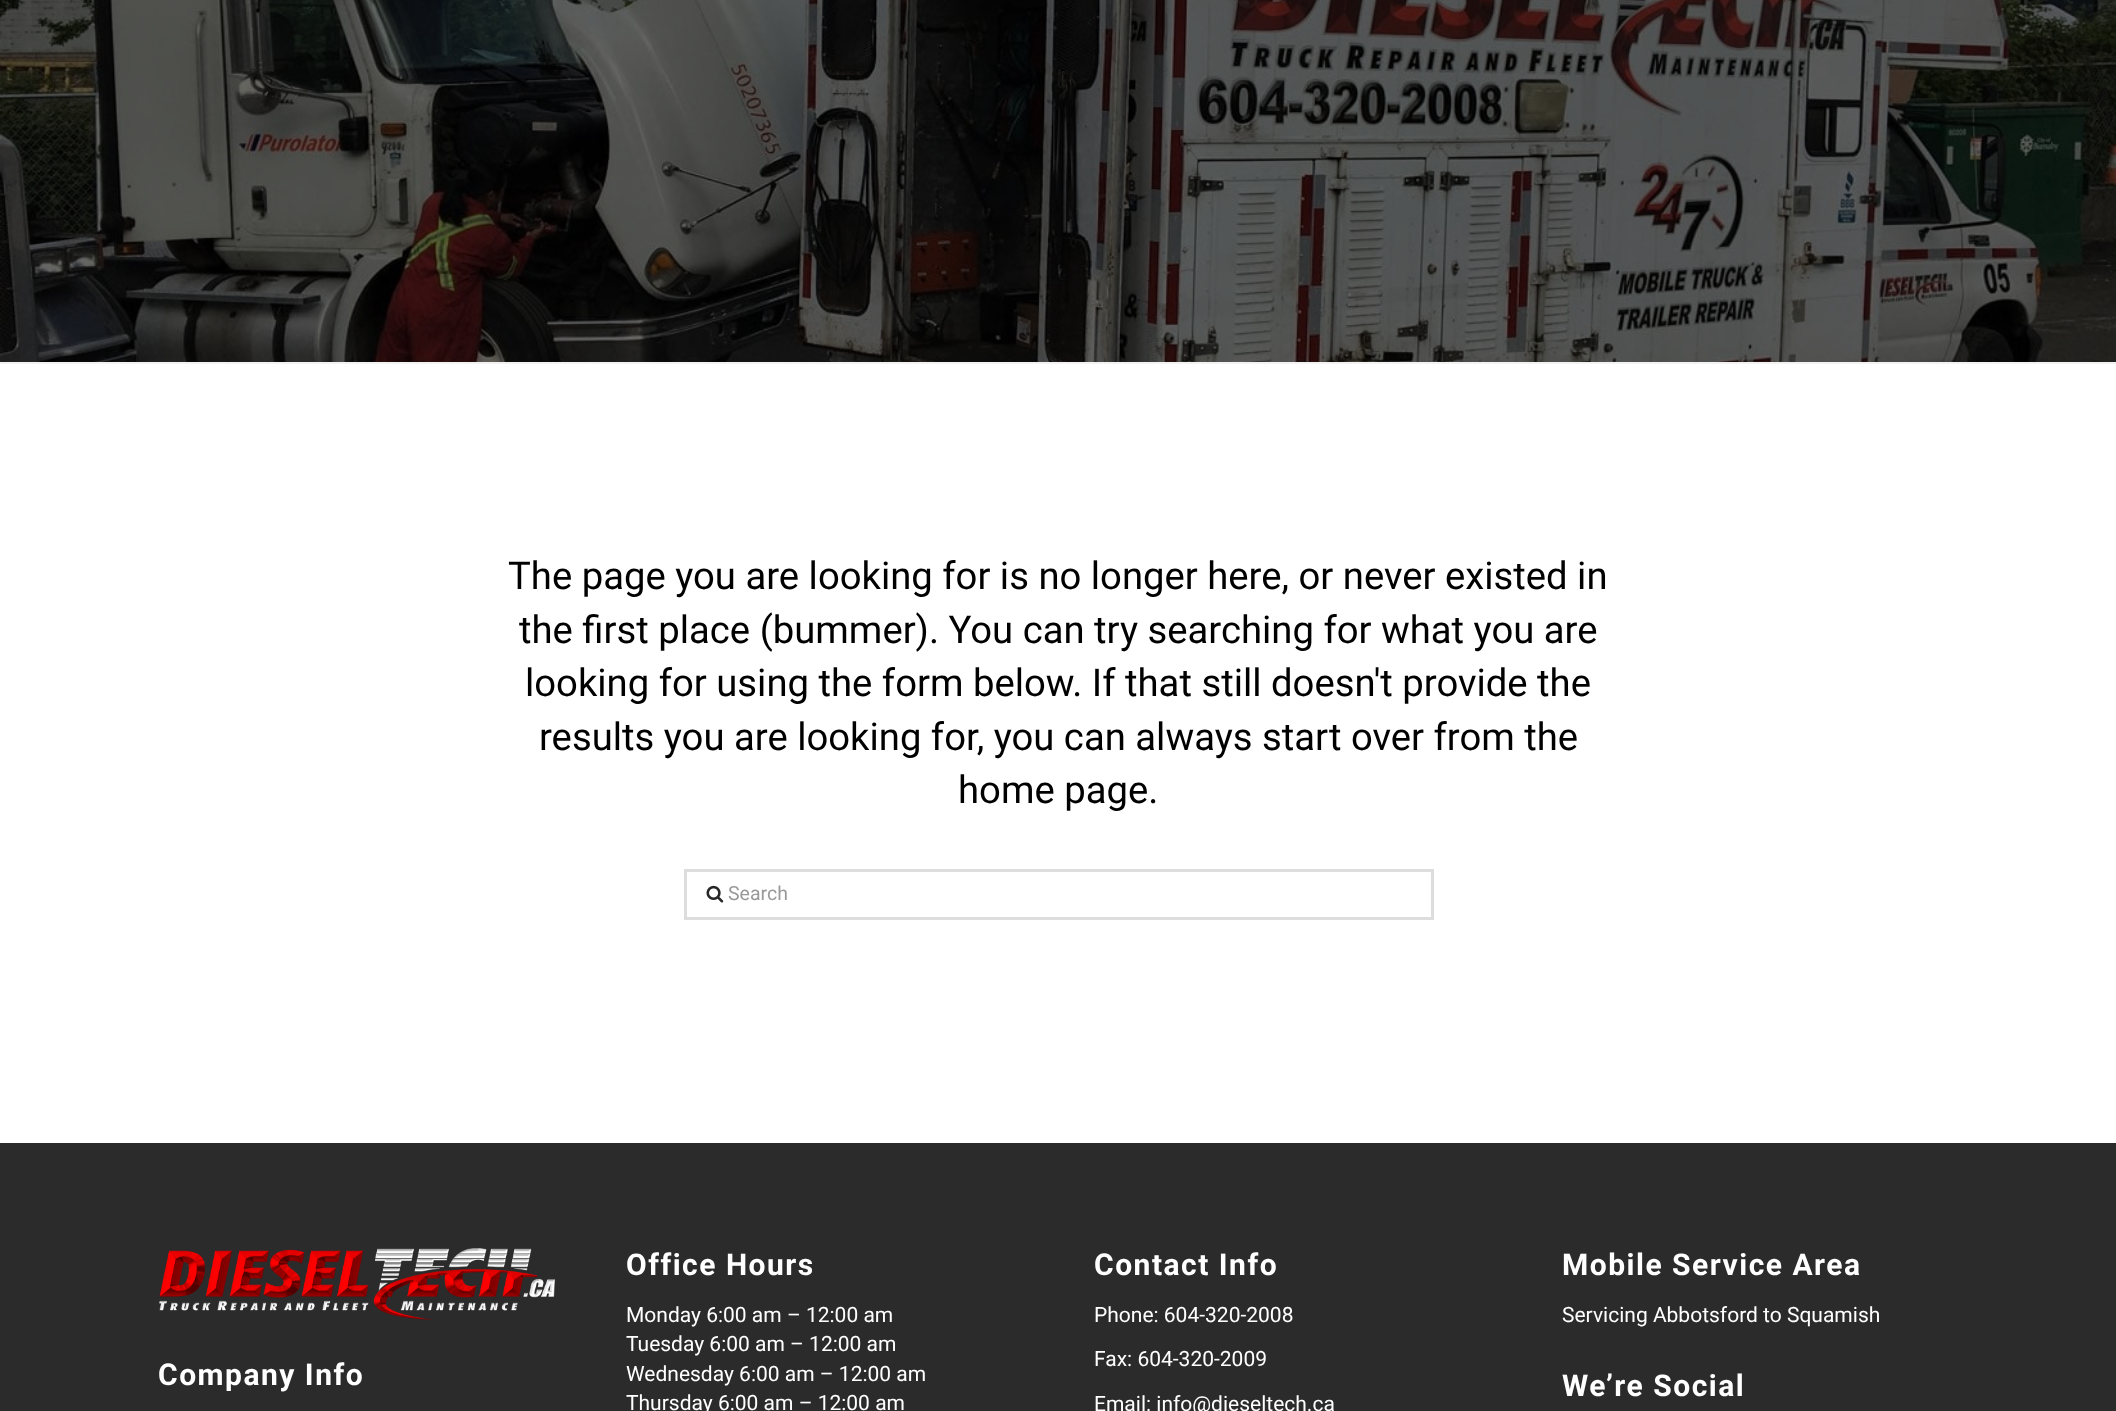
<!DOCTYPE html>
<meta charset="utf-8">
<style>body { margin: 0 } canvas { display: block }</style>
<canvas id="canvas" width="2116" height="1411"></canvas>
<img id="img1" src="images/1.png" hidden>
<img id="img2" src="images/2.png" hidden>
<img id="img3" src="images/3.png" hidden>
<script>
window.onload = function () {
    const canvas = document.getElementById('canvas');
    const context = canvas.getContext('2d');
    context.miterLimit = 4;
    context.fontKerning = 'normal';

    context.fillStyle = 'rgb(255, 255, 255)';
    context.fillRect(0, 0, 2116, 1411);
    context.drawImage(document.getElementById('img1'), 0, 0, 2116, 362);
    context.fillStyle = 'rgb(242, 242, 242)';
    context.fillRect(0, 362, 2116, 2);
    context.strokeStyle = 'rgb(221, 221, 221)';
    context.lineWidth = 3;
    context.strokeRect(685.5, 870.5, 747, 48);
    context.drawImage(document.getElementById('img2'), 706, 885, 18, 18);
    context.fillStyle = 'rgb(43, 43, 43)';
    context.fillRect(0, 1143, 2116, 268);
    context.drawImage(document.getElementById('img3'), 159, 1248, 396, 72);
    context.font = '38.25px Roboto';
    context.fillStyle = 'rgb(0, 0, 0)';
    context.fillText('The page you are looking for is no longer here, or never existed in', 508, 589);
    context.fillText('the first place (bummer). You can try searching for what you are', 519, 643);
    context.fillText('looking for using the form below. If that still doesn\'t provide the', 525, 696);
    context.fillText('results you are looking for, you can always start over from the', 539, 750);
    context.fillText('home page.', 958, 803);
    context.font = '19.5px Roboto';
    context.fillStyle = 'rgb(153, 153, 153)';
    context.fillText('Search', 728, 900);
    context.letterSpacing = '1.5px';
    context.font = 'bold 30px Roboto';
    context.fillStyle = 'rgb(255, 255, 255)';
    context.fillText('Company Info', 158, 1385);
    context.fillText('Office Hours', 626, 1275);
    context.letterSpacing = '0px';
    context.font = '21px Roboto';
    context.fillText('Monday 6:00 am – 12:00 am', 626, 1322);
    context.fillText('Tuesday 6:00 am – 12:00 am', 626, 1351);
    context.fillText('Wednesday 6:00 am – 12:00 am', 626, 1381);
    context.fillText('Thursday 6:00 am – 12:00 am', 626, 1410);
    context.letterSpacing = '1.5px';
    context.font = 'bold 30px Roboto';
    context.fillText('Contact Info', 1094, 1275);
    context.letterSpacing = '0px';
    context.font = '21px Roboto';
    context.fillText('Phone: 604-320-2008', 1094, 1322);
    context.fillText('Fax: 604-320-2009', 1094, 1366);
    context.fillText('Email: info@dieseltech.ca', 1094, 1411);
    context.letterSpacing = '1.5px';
    context.font = 'bold 30px Roboto';
    context.fillText('Mobile Service Area', 1562, 1275);
    context.letterSpacing = '0px';
    context.font = '21px Roboto';
    context.fillText('Servicing Abbotsford to Squamish', 1562, 1322);
    context.letterSpacing = '1.5px';
    context.font = 'bold 30px Roboto';
    context.fillText('We’re Social', 1562, 1396);
};
</script>
